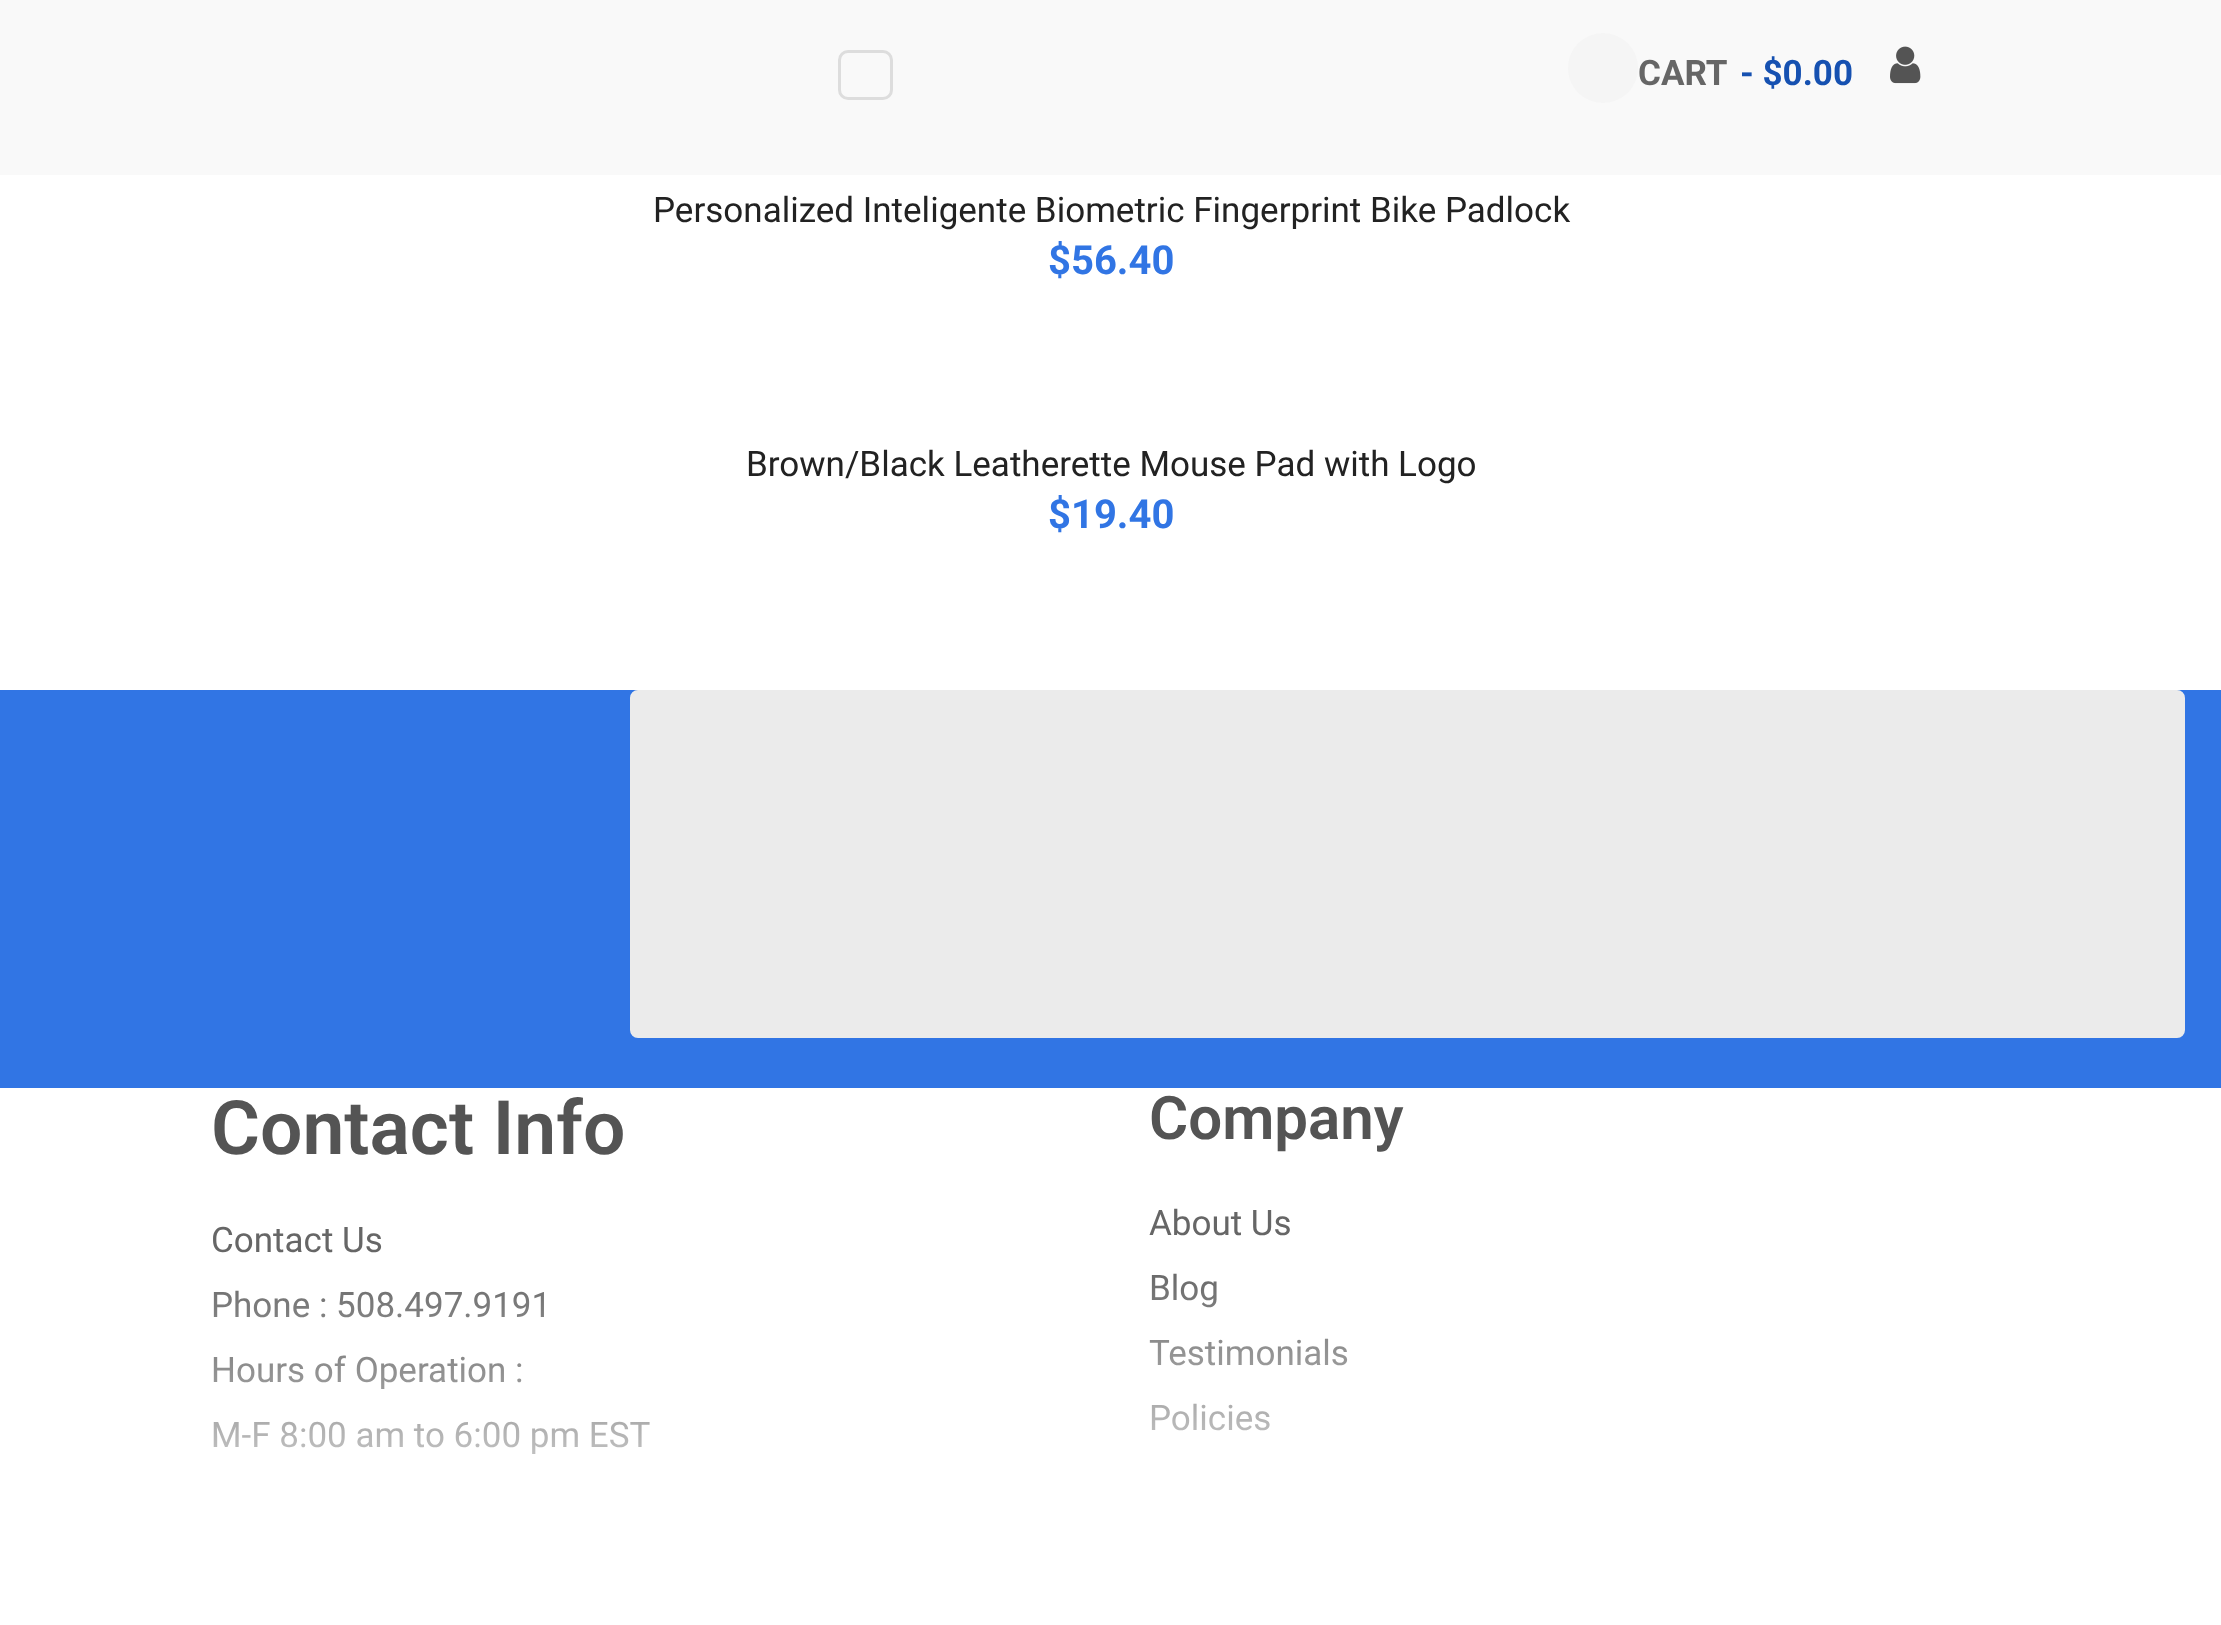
<!DOCTYPE html>
<meta charset="utf-8">
<style>body { margin: 0 } canvas { display: block }</style>
<canvas id="canvas" width="2221" height="1625"></canvas>
<img id="img1" src="images/1.png" hidden>
<script>
window.onload = function () {
    const canvas = document.getElementById('canvas');
    const context = canvas.getContext('2d');
    context.miterLimit = 4;
    context.fontKerning = 'normal';
    let gradient;

    context.fillStyle = 'rgb(255, 255, 255)';
    context.fillRect(0, 0, 2221, 1625);
    context.fillStyle = 'rgb(249, 249, 249)';
    context.fillRect(0, 0, 2221, 175);
    context.beginPath();
    context.roundRect(839.5, 51.5, 52, 47, 8.5);
    context.strokeStyle = 'rgb(221, 221, 221)';
    context.lineWidth = 3;
    context.stroke();
    context.fillStyle = 'rgb(245, 245, 245)';
    context.beginPath();
    context.arc(1603, 68, 35, 0, 2 * Math.PI);
    context.fill();
    context.drawImage(document.getElementById('img1'), 1890, 46, 31, 38);
    context.fillStyle = 'rgb(49, 117, 228)';
    context.fillRect(0, 690, 2221, 398);
    context.fillStyle = 'rgb(235, 235, 235)';
    context.beginPath();
    context.roundRect(631.5, 691.5, 1552, 345, 6.5);
    context.fill();
    context.strokeStyle = 'rgb(235, 235, 235)';
    context.stroke();
    context.font = 'bold 35px Roboto';
    context.fillStyle = 'rgb(102, 102, 102)';
    context.fillText('CART', 1638, 85);
    context.fillStyle = 'rgb(22, 81, 177)';
    context.fillText('- $0.00', 1740, 85);
    context.font = '35px Roboto';
    context.fillStyle = 'rgb(34, 34, 34)';
    context.fillText('Personalized Inteligente Biometric Fingerprint Bike Padlock', 653, 222);
    context.font = 'bold 40px Roboto';
    context.fillStyle = 'rgb(49, 117, 228)';
    context.fillText('$56.40', 1048, 274);
    context.font = '35px Roboto';
    context.fillStyle = 'rgb(34, 34, 34)';
    context.fillText('Brown/Black Leatherette Mouse Pad with Logo', 746, 476);
    context.font = 'bold 40px Roboto';
    context.fillStyle = 'rgb(49, 117, 228)';
    context.fillText('$19.40', 1048, 528);
    context.font = '600 75px Roboto';
    context.fillStyle = 'rgb(84, 84, 84)';
    context.fillText('Contact Info', 211, 1154);
    context.font = '35px Roboto';
    context.fillStyle = 'rgb(102, 102, 102)';
    context.fillText('Contact Us', 211, 1252);
    context.fillText('Phone : 508.497.9191', 211, 1317);
    context.fillStyle = 'rgb(84, 84, 84)';
    context.fillText('Hours of Operation :', 211, 1382);
    context.fillText('M-F 8:00 am to 6:00 pm EST', 211, 1447);
    context.font = '600 60px Roboto';
    context.fillText('Company', 1149, 1139);
    context.font = '35px Roboto';
    context.fillStyle = 'rgb(102, 102, 102)';
    context.fillText('About Us', 1149, 1235);
    context.fillText('Blog', 1149, 1300);
    context.fillText('Testimonials', 1149, 1365);
    context.fillText('Policies', 1149, 1430);
    gradient = context.createLinearGradient(1111, 1265, 1111, 1565);
    gradient.addColorStop(0, 'rgba(255, 255, 255, 0)');
    gradient.addColorStop(1, 'rgb(255, 255, 255)');
    context.fillStyle = gradient;
    context.fillRect(214, 1274, 1133, 181);
};
</script>
